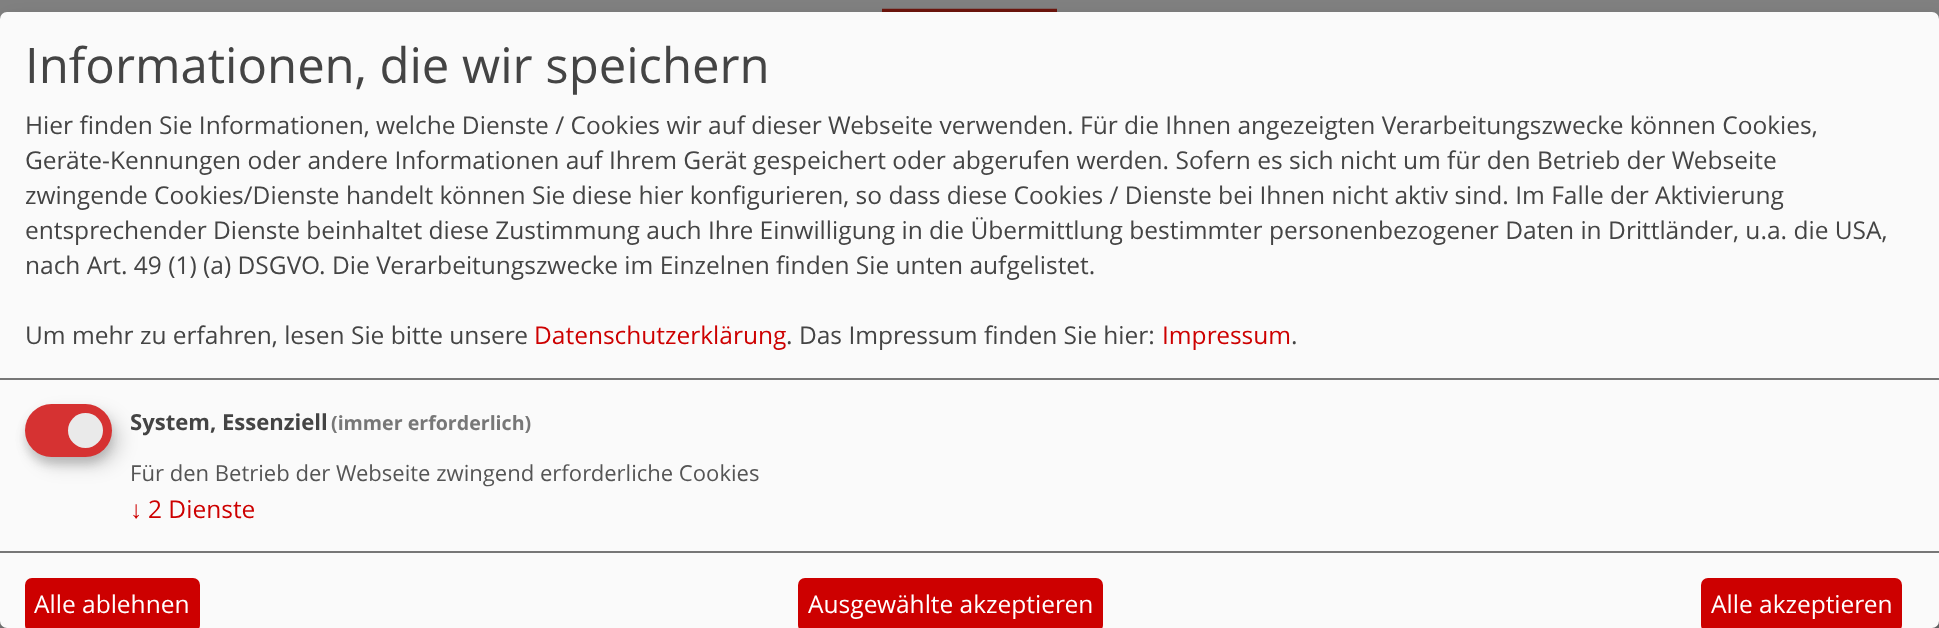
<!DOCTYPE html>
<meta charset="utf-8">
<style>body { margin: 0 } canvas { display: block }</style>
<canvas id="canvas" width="1939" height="628"></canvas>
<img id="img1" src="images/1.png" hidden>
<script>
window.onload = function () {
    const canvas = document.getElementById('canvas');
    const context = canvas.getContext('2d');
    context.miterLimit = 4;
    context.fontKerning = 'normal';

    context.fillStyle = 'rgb(128, 128, 128)';
    context.fillRect(0, 0, 1939, 628);
    context.drawImage(document.getElementById('img1'), 882, 8, 175, 4);
    context.fillStyle = 'rgba(0, 0, 0, 0.19)';
    context.filter = 'blur(9px)';
    context.beginPath();
    context.roundRect(9, 21, 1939, 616, 7);
    context.fill();
    context.filter = 'none';
    context.fillStyle = 'rgba(0, 0, 0, 0.2)';
    context.filter = 'blur(5px)';
    context.beginPath();
    context.roundRect(0, 19, 1939, 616, 7);
    context.fill();
    context.filter = 'none';
    context.fillStyle = 'rgb(250, 250, 250)';
    context.beginPath();
    context.roundRect(0, 12, 1939, 616, 7);
    context.fill();
    context.fillStyle = 'rgb(119, 119, 119)';
    context.fillRect(0, 378, 1939, 2);
    context.fillStyle = 'rgba(0, 0, 0, 0.15)';
    context.filter = 'blur(9px)';
    context.beginPath();
    context.roundRect(33, 413, 88, 53, 26.5);
    context.fill();
    context.filter = 'none';
    context.fillStyle = 'rgba(50, 50, 50, 0.2)';
    context.filter = 'blur(5px)';
    context.beginPath();
    context.roundRect(25, 411, 87, 53, 26.5);
    context.fill();
    context.filter = 'none';
    context.fillStyle = 'rgb(214, 50, 50)';
    context.beginPath();
    context.roundRect(25, 404, 87, 53, 26.5);
    context.fill();
    context.fillStyle = 'rgb(234, 234, 234)';
    context.beginPath();
    context.arc(85.5, 430.5, 17.5, 0, 2 * Math.PI);
    context.fill();
    context.fillStyle = 'rgb(119, 119, 119)';
    context.fillRect(0, 551, 1939, 2);
    context.fillStyle = 'rgb(205, 0, 0)';
    context.beginPath();
    context.roundRect(25, 578, 175, 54, 7);
    context.fill();
    context.beginPath();
    context.roundRect(798, 578, 305, 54, 7);
    context.fill();
    context.beginPath();
    context.roundRect(1701, 578, 201, 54, 7);
    context.fill();
    context.font = '49px Open Sans';
    context.fillStyle = 'rgb(68, 68, 68)';
    context.fillText('Informationen, die wir speichern', 25, 83);
    context.font = '24.5px Open Sans';
    context.fillText('Hier finden Sie Informationen, welche Dienste / Cookies wir auf dieser Webseite verwenden. Für die Ihnen angezeigten Verarbeitungszwecke können Cookies,', 25, 134);
    context.fillText('Geräte-Kennungen oder andere Informationen auf Ihrem Gerät gespeichert oder abgerufen werden. Sofern es sich nicht um für den Betrieb der Webseite', 25, 169);
    context.fillText('zwingende Cookies/Dienste handelt können Sie diese hier konfigurieren, so dass diese Cookies / Dienste bei Ihnen nicht aktiv sind. Im Falle der Aktivierung', 25, 204);
    context.fillText('entsprechender Dienste beinhaltet diese Zustimmung auch Ihre Einwilligung in die Übermittlung bestimmter personenbezogener Daten in Drittländer, u.a. die USA,', 25, 239);
    context.fillText('nach Art. 49 (1) (a) DSGVO. Die Verarbeitungszwecke im Einzelnen finden Sie unten aufgelistet.', 25, 274);
    context.fillText('Um mehr zu erfahren, lesen Sie bitte unsere', 25, 344);
    context.fillStyle = 'rgb(205, 0, 0)';
    context.fillText('Datenschutzerklärung', 534, 344);
    context.fillStyle = 'rgb(68, 68, 68)';
    context.fillText('. Das Impressum finden Sie hier:', 786, 344);
    context.fillStyle = 'rgb(205, 0, 0)';
    context.fillText('Impressum', 1162, 344);
    context.fillStyle = 'rgb(68, 68, 68)';
    context.fillText('.', 1291, 344);
    context.font = 'bold 22.05px Open Sans';
    context.fillText('System, Essenziell', 130, 430);
    context.font = 'bold 19.6px Open Sans';
    context.fillStyle = 'rgb(119, 119, 119)';
    context.fillText('(immer erforderlich)', 331, 430);
    context.font = '22.05px Open Sans';
    context.fillStyle = 'rgb(85, 85, 85)';
    context.fillText('Für den Betrieb der Webseite zwingend erforderliche Cookies', 130, 481);
    context.font = '24.5px Liberation Sans';
    context.fillStyle = 'rgb(205, 0, 0)';
    context.fillText('↓', 130, 518);
    context.font = '24.5px Open Sans';
    context.fillText('2 Dienste', 148, 518);
    context.fillStyle = 'rgb(255, 255, 255)';
    context.fillText('Alle ablehnen', 34, 613);
    context.fillText('Ausgewählte akzeptieren', 808, 613);
    context.fillText('Alle akzeptieren', 1711, 613);
};
</script>
